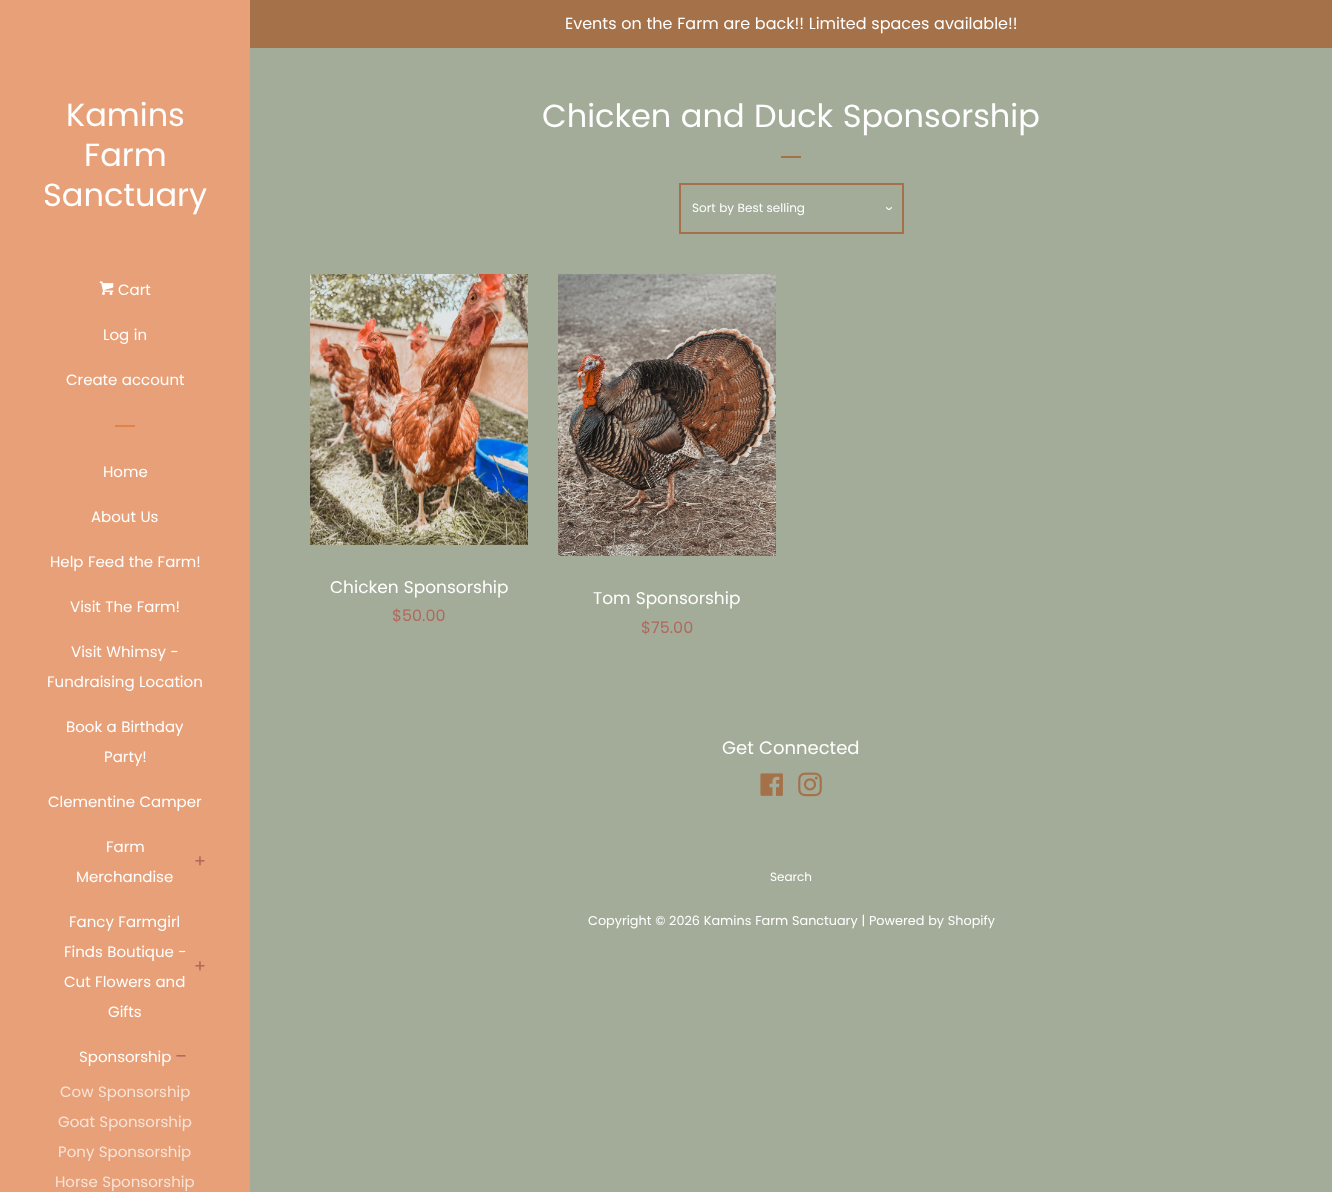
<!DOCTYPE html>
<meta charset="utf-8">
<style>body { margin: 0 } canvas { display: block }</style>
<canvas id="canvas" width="1332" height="1192"></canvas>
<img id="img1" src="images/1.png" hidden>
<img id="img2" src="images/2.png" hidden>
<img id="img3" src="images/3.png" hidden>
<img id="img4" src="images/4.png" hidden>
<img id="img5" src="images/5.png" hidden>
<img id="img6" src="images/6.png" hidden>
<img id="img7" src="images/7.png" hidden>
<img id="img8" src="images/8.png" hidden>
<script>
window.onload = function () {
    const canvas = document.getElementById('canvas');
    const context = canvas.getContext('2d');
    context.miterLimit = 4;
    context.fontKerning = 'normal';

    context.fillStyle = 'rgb(232, 160, 120)';
    context.fillRect(0, 0, 1332, 1192);
    context.drawImage(document.getElementById('img1'), 99, 281, 15, 14);
    context.fillStyle = 'rgb(225, 129, 76)';
    context.fillRect(115, 425, 20, 2);
    context.drawImage(document.getElementById('img2'), 195, 856, 10, 10);
    context.drawImage(document.getElementById('img2'), 195, 961, 10, 10);
    context.drawImage(document.getElementById('img3'), 176, 1055, 10, 2);
    context.fillStyle = 'rgb(163, 172, 153)';
    context.fillRect(250, 48, 1082, 1144);
    context.fillStyle = 'rgb(165, 113, 73)';
    context.fillRect(250, 0, 1082, 48);
    context.fillRect(781, 156, 20, 2);
    context.drawImage(document.getElementById('img4'), 886, 207, 6, 3);
    context.strokeStyle = 'rgb(165, 113, 73)';
    context.lineWidth = 2;
    context.strokeRect(680, 184, 223, 49);
    context.drawImage(document.getElementById('img5'), 310, 274, 218, 271);
    context.drawImage(document.getElementById('img6'), 558, 274, 218, 282);
    context.drawImage(document.getElementById('img7'), 760, 773, 23, 23);
    context.drawImage(document.getElementById('img8'), 798, 772, 24, 25);
    context.font = '32px Poppins';
    context.fillStyle = 'rgb(255, 255, 255)';
    context.fillText('Kamins', 66, 126);
    context.fillText('Farm', 84, 166);
    context.fillText('Sanctuary', 43, 206);
    context.font = '15px Poppins';
    context.fillText('Cart', 118, 295);
    context.fillText('Log in', 103, 340);
    context.fillText('Create account', 66, 385);
    context.fillText('Home', 103, 477);
    context.fillText('About Us', 91, 522);
    context.fillText('Help Feed the Farm!', 50, 567);
    context.fillText('Visit The Farm!', 70, 612);
    context.fillText('Visit Whimsy -', 71, 657);
    context.fillText('Fundraising Location', 47, 687);
    context.fillText('Book a Birthday', 66, 732);
    context.fillText('Party!', 104, 762);
    context.fillText('Clementine Camper', 48, 807);
    context.fillText('Farm', 106, 852);
    context.fillText('Merchandise', 76, 882);
    context.fillText('Fancy Farmgirl', 69, 927);
    context.fillText('Finds Boutique -', 64, 957);
    context.fillText('Cut Flowers and', 64, 987);
    context.fillText('Gifts', 108, 1017);
    context.fillText('Sponsorship', 79, 1062);
    context.fillStyle = 'rgb(248, 227, 215)';
    context.fillText('Cow Sponsorship', 60, 1097);
    context.fillText('Goat Sponsorship', 58, 1127);
    context.fillText('Pony Sponsorship', 58, 1157);
    context.fillText('Horse Sponsorship', 55, 1187);
    context.font = '16px Poppins';
    context.fillStyle = 'rgb(255, 255, 255)';
    context.fillText('Events on the Farm are back!! Limited spaces available!!', 565, 29);
    context.font = '32px Poppins';
    context.fillText('Chicken and Duck Sponsorship', 542, 127);
    context.font = '12px Poppins';
    context.fillText('Sort by Best selling', 692, 212);
    context.font = '17px Poppins';
    context.fillText('Chicken Sponsorship', 330, 593);
    context.font = '16px Poppins';
    context.fillStyle = 'rgb(175, 105, 93)';
    context.fillText('$50.00', 392, 621);
    context.font = '17px Poppins';
    context.fillStyle = 'rgb(255, 255, 255)';
    context.fillText('Tom Sponsorship', 593, 604);
    context.font = '16px Poppins';
    context.fillStyle = 'rgb(175, 105, 93)';
    context.fillText('$75.00', 641, 633);
    context.font = '18px Poppins';
    context.fillStyle = 'rgb(255, 255, 255)';
    context.fillText('Get Connected', 722, 754);
    context.font = '12px Poppins';
    context.fillText('Search', 770, 881);
    context.font = '12.8px Poppins';
    context.fillText('Copyright © 2026 Kamins Farm Sanctuary | Powered by Shopify', 588, 925);
};
</script>
